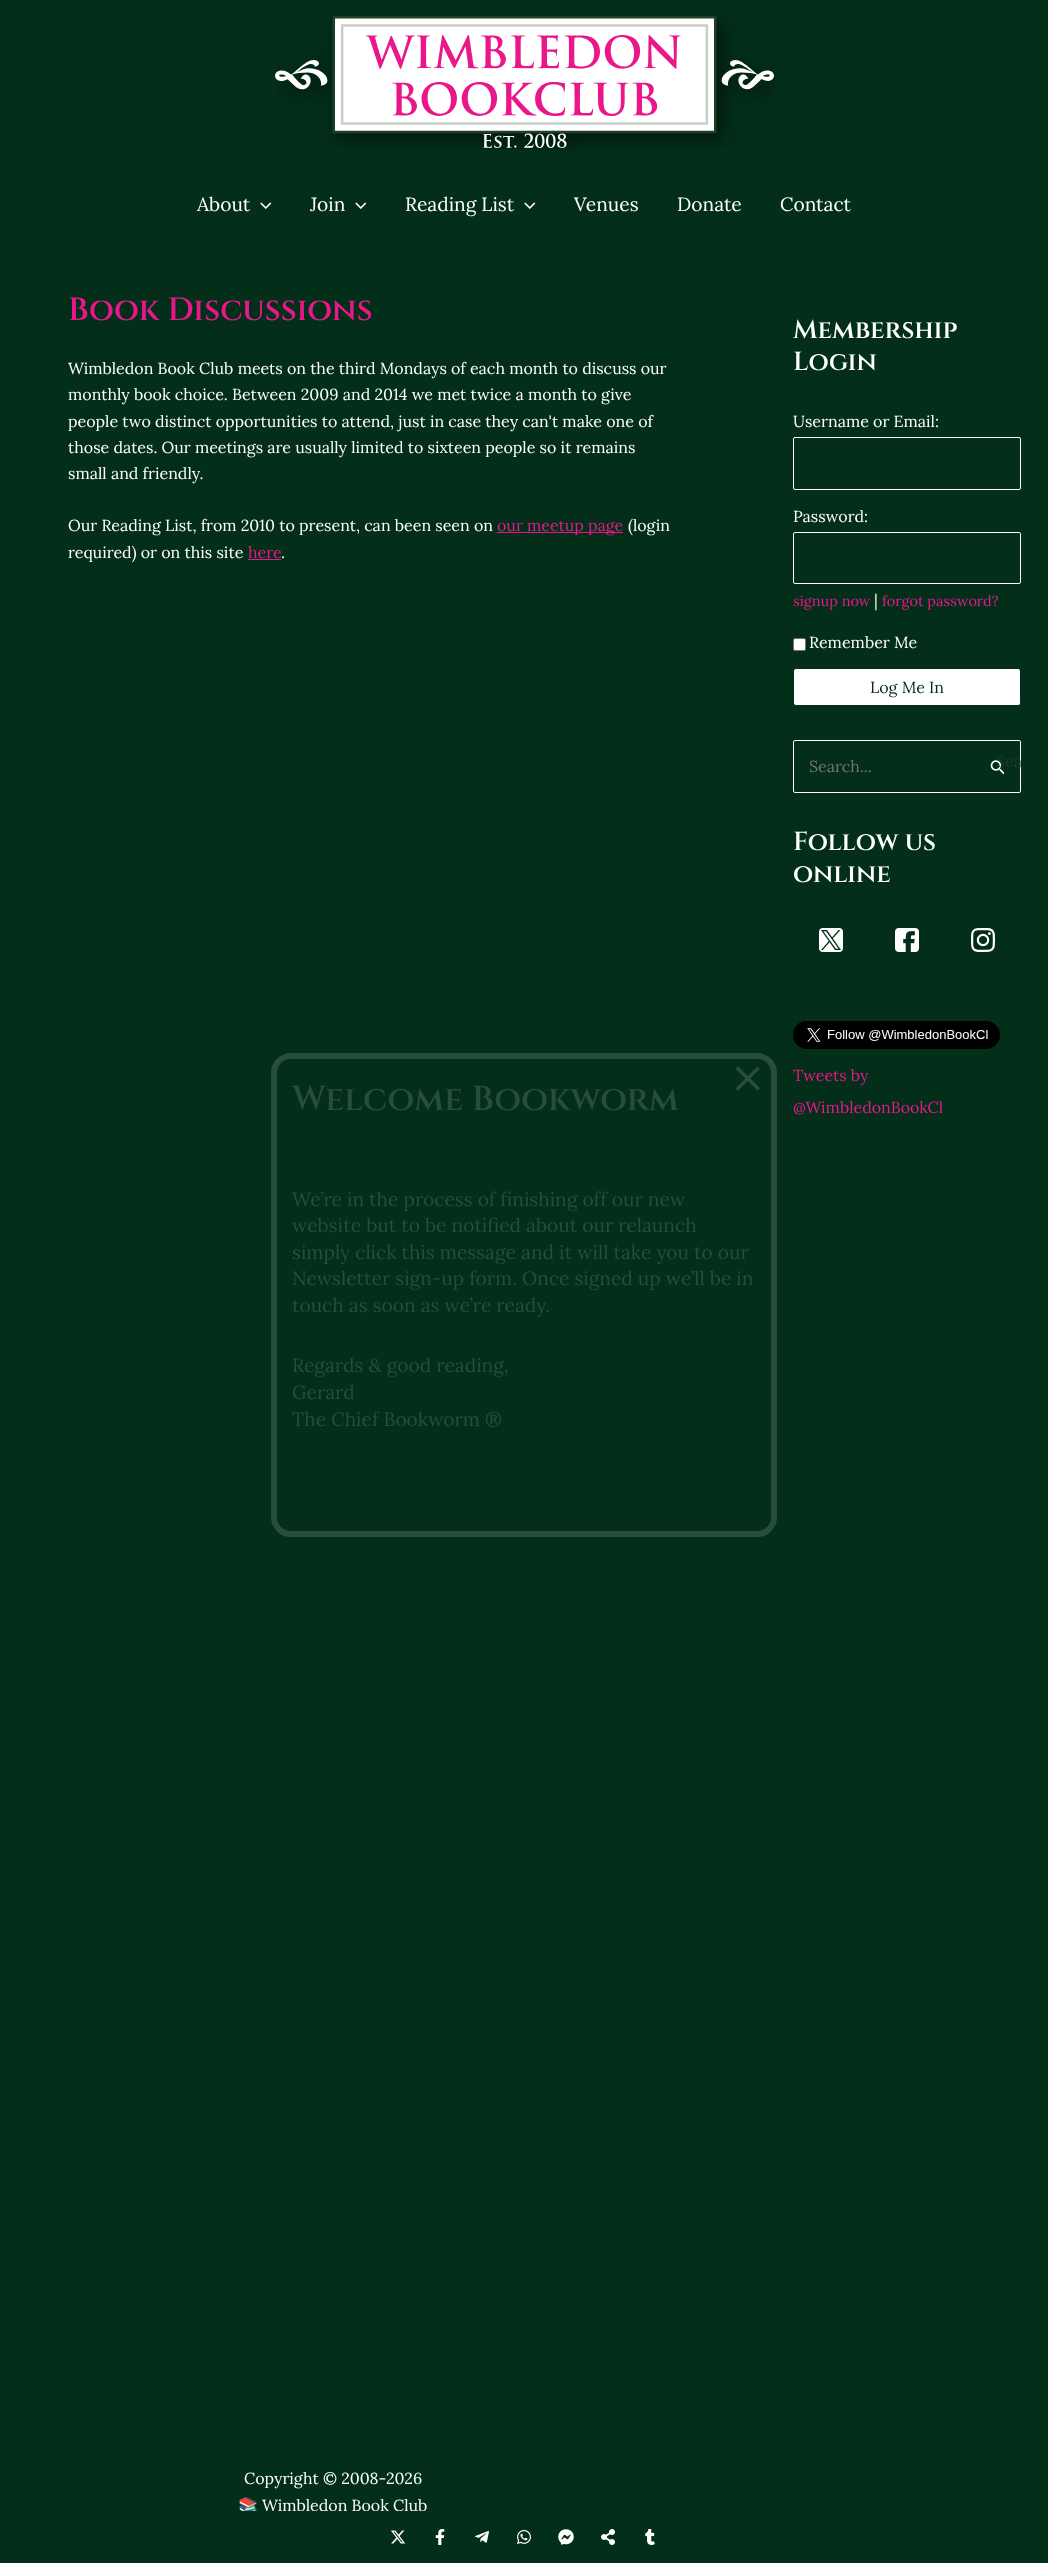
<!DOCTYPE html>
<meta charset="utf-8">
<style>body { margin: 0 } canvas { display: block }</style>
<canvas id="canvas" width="1048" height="2563"></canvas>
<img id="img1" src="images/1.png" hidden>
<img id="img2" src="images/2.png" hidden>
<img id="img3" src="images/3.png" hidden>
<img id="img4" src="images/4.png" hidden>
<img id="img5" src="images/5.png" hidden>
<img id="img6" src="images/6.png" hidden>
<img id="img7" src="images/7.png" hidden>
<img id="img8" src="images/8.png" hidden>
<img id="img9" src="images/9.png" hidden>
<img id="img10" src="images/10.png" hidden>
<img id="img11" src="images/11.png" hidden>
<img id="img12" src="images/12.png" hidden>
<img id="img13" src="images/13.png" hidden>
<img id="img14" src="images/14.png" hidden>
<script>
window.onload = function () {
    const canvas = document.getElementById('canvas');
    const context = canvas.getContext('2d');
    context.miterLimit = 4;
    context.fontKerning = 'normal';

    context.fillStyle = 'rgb(3, 46, 26)';
    context.fillRect(0, 0, 1048, 2563);
    context.drawImage(document.getElementById('img1'), 275, 15, 500, 135);
    context.drawImage(document.getElementById('img2'), 260, 202, 12, 7);
    context.drawImage(document.getElementById('img2'), 355, 202, 12, 7);
    context.drawImage(document.getElementById('img2'), 524, 202, 12, 7);
    context.fillStyle = 'rgb(233, 23, 138)';
    context.fillRect(497, 532, 126, 1);
    context.fillRect(248, 559, 33, 1);
    context.beginPath();
    context.roundRect(793.5, 437.5, 227, 52, 1.5);
    context.strokeStyle = 'rgb(255, 255, 255)';
    context.stroke();
    context.beginPath();
    context.roundRect(793.5, 532.5, 227, 51, 1.5);
    context.stroke();
    context.fillStyle = 'rgb(255, 255, 255)';
    context.beginPath();
    context.roundRect(793.5, 638.5, 12, 12, 1.5);
    context.fill();
    context.strokeStyle = 'rgb(118, 118, 118)';
    context.stroke();
    context.beginPath();
    context.roundRect(793.5, 668.5, 227, 37, 2.5);
    context.fill();
    context.strokeStyle = 'rgb(3, 46, 26)';
    context.stroke();
    context.beginPath();
    context.roundRect(793.5, 740.5, 227, 52, 1.5);
    context.strokeStyle = 'rgb(255, 255, 255)';
    context.stroke();
    context.drawImage(document.getElementById('img3'), 990, 760, 14, 15);
    context.drawImage(document.getElementById('img4'), 819, 928, 24, 24);
    context.drawImage(document.getElementById('img5'), 895, 928, 24, 24);
    context.drawImage(document.getElementById('img6'), 971, 928, 24, 24);
    context.drawImage(document.getElementById('img7'), 793, 1021, 207, 28);
    context.beginPath();
    context.roundRect(274, 1056, 500, 478, 17);
    context.strokeStyle = 'rgb(40, 77, 60)';
    context.lineWidth = 6;
    context.stroke();
    context.drawImage(document.getElementById('img8'), 391, 2530, 15, 14);
    context.drawImage(document.getElementById('img9'), 435, 2529, 10, 16);
    context.drawImage(document.getElementById('img10'), 475, 2531, 14, 12);
    context.drawImage(document.getElementById('img11'), 517, 2530, 14, 14);
    context.drawImage(document.getElementById('img12'), 558, 2529, 16, 16);
    context.drawImage(document.getElementById('img13'), 601, 2529, 14, 16);
    context.drawImage(document.getElementById('img14'), 645, 2529, 10, 16);
    context.font = '19.2px Lora';
    context.fillText('About', 197, 211);
    context.fillText('Join', 310, 211);
    context.fillText('Reading List', 405, 211);
    context.fillText('Venues', 574, 211);
    context.fillText('Donate', 677, 211);
    context.fillText('Contact', 780, 211);
    context.font = '600 32px Cinzel';
    context.fillStyle = 'rgb(233, 23, 138)';
    context.fillText('Book Discussions', 68, 320);
    context.font = '16px Lora';
    context.fillStyle = 'rgb(255, 255, 255)';
    context.fillText('Wimbledon Book Club meets on the third Mondays of each month to discuss our', 68, 374);
    context.fillText('monthly book choice. Between 2009 and 2014 we met twice a month to give', 68, 400);
    context.fillText('people two distinct opportunities to attend, just in case they can\'t make one of', 68, 427);
    context.fillText('those dates. Our meetings are usually limited to sixteen people so it remains', 68, 453);
    context.fillText('small and friendly.', 68, 479);
    context.fillText('Our Reading List, from 2010 to present, can been seen on', 68, 531);
    context.fillStyle = 'rgb(233, 23, 138)';
    context.fillText('our meetup page', 497, 531);
    context.fillStyle = 'rgb(255, 255, 255)';
    context.fillText('(login', 628, 531);
    context.fillText('required) or on this site', 68, 558);
    context.fillStyle = 'rgb(233, 23, 138)';
    context.fillText('here', 248, 558);
    context.fillStyle = 'rgb(255, 255, 255)';
    context.fillText('.', 281, 558);
    context.font = '600 26px Cinzel';
    context.fillText('Membership', 793, 338);
    context.fillText('Login', 793, 370);
    context.font = '16px Lora';
    context.fillText('Username or Email:', 793, 427);
    context.fillText('Password:', 793, 522);
    context.font = '14.5px Lora';
    context.fillStyle = 'rgb(233, 23, 138)';
    context.fillText('signup now', 793, 606);
    context.font = '16px Lora';
    context.fillStyle = 'rgb(255, 255, 255)';
    context.fillText('|', 874, 606);
    context.font = '14.5px Lora';
    context.fillStyle = 'rgb(233, 23, 138)';
    context.fillText('forgot password?', 882, 606);
    context.font = '16px Lora';
    context.fillStyle = 'rgb(255, 255, 255)';
    context.fillText('Remember Me', 809, 648);
    context.fillStyle = 'rgb(3, 46, 26)';
    context.fillText('Log Me In', 870, 693);
    context.fillStyle = 'rgb(117, 117, 117)';
    context.fillText('Search...', 809, 772);
    context.fillStyle = 'rgb(23, 62, 44)';
    context.fillText('Sea', 996, 767);
    context.font = '600 26px Cinzel';
    context.fillStyle = 'rgb(255, 255, 255)';
    context.fillText('Follow us', 793, 850);
    context.fillText('online', 793, 882);
    context.font = '16px Lora';
    context.fillStyle = 'rgb(233, 23, 138)';
    context.fillText('Tweets by', 793, 1081);
    context.fillText('@WimbledonBookCl', 793, 1113);
    context.fillStyle = 'rgb(255, 255, 255)';
    context.fillText('Copyright © 2008-2026', 244, 2484);
    context.font = '16px Noto Color Emoji';
    context.fillText('📚', 238, 2511);
    context.font = '16px Lora';
    context.fillText('Wimbledon Book Club', 262, 2511);
    context.font = '70px Lora';
    context.fillStyle = 'rgb(40, 77, 60)';
    context.fillText('×', 729, 1104);
    context.font = '600 34.5px Cinzel';
    context.fillText('Welcome Bookworm', 292, 1110);
    context.font = '19.2px Lora';
    context.fillText('We’re in the process of finishing off our new', 292, 1206);
    context.fillText('website but to be notified about our relaunch', 292, 1232);
    context.fillText('simply click this message and it will take you to our', 292, 1259);
    context.fillText('Newsletter sign-up form. Once signed up we’ll be in', 292, 1285);
    context.fillText('touch as soon as we’re ready.', 292, 1312);
    context.fillText('Regards & good reading,', 292, 1372);
    context.fillText('Gerard', 292, 1399);
    context.fillText('The Chief Bookworm ®', 292, 1426);
    context.fillStyle = 'rgb(3, 46, 26)';
    context.fillRect(237, 2511, 187, 4);
};
</script>
